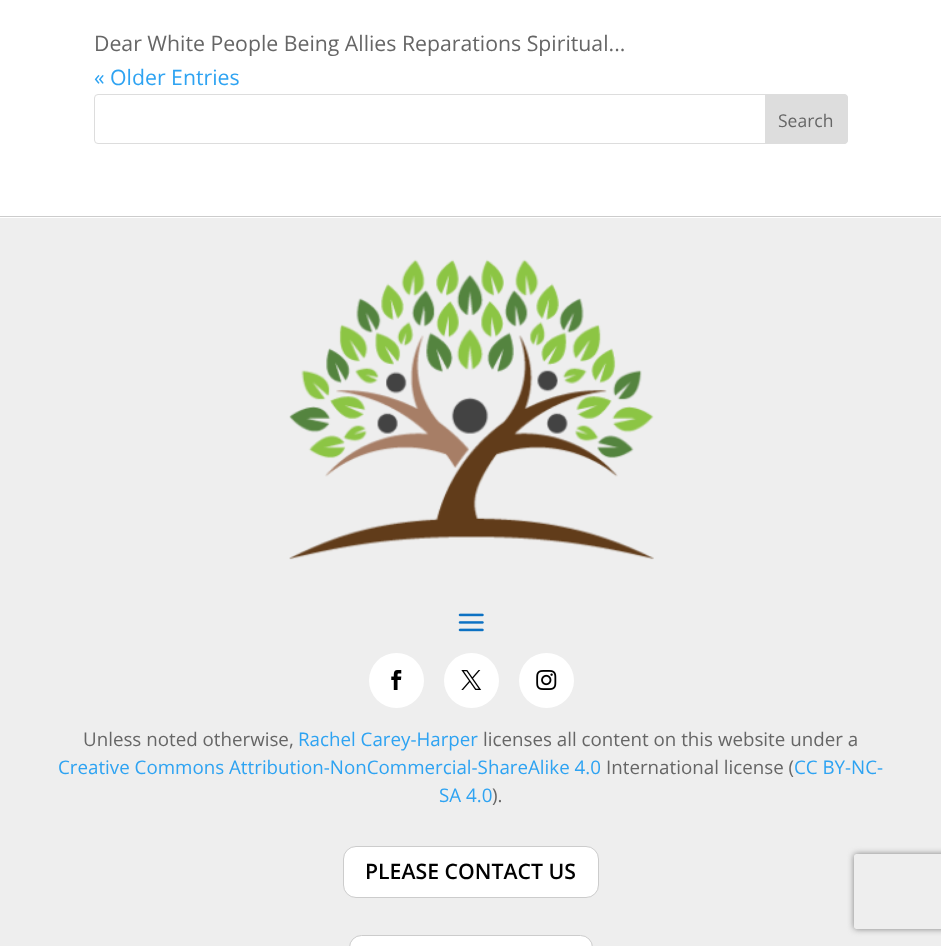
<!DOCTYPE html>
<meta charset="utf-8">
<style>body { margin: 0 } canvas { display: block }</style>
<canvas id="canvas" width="941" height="946"></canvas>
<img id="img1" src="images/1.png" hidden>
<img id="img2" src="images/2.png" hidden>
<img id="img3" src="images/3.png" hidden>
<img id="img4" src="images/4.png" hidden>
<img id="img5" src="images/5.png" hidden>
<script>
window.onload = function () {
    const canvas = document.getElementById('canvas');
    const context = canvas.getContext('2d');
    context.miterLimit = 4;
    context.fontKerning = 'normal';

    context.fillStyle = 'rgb(255, 255, 255)';
    context.fillRect(0, 0, 941, 946);
    context.beginPath();
    context.roundRect(94.5, 94.5, 753, 49, 3.5);
    context.strokeStyle = 'rgb(221, 221, 221)';
    context.stroke();
    context.fillStyle = 'rgb(221, 221, 221)';
    context.beginPath();
    context.roundRect(765.5, 94.5, 82, 49, [0, 3.5, 3.5, 0]);
    context.fill();
    context.stroke();
    context.fillStyle = 'rgb(238, 238, 238)';
    context.fillRect(0, 218, 941, 728);
    context.fillStyle = 'rgb(204, 204, 204)';
    context.fillRect(0, 216, 941, 1);
    context.drawImage(document.getElementById('img1'), 289, 259, 365, 301);
    context.drawImage(document.getElementById('img2'), 458, 613, 26, 19);
    context.fillStyle = 'rgb(255, 255, 255)';
    context.beginPath();
    context.arc(396.5, 680.5, 27.5, 0, 2 * Math.PI);
    context.fill();
    context.drawImage(document.getElementById('img3'), 391, 670, 11, 20);
    context.beginPath();
    context.arc(471.5, 680.5, 27.5, 0, 2 * Math.PI);
    context.fill();
    context.drawImage(document.getElementById('img4'), 461, 670, 21, 20);
    context.beginPath();
    context.arc(546.5, 680.5, 27.5, 0, 2 * Math.PI);
    context.fill();
    context.drawImage(document.getElementById('img5'), 536, 670, 21, 20);
    context.beginPath();
    context.roundRect(343.5, 846.5, 255, 51, 12.5);
    context.fill();
    context.strokeStyle = 'rgb(204, 204, 204)';
    context.stroke();
    context.beginPath();
    context.roundRect(349.5, 935.5, 243, 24, 12.5);
    context.fill();
    context.stroke();
    context.save();
    context.beginPath();
    context.moveTo(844, 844);
    context.lineTo(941, 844);
    context.lineTo(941, 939);
    context.lineTo(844, 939);
    context.closePath();
    context.moveTo(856.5, 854);
    context.lineTo(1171.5, 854);
    context.bezierCurveTo(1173, 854, 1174, 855, 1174, 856.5);
    context.lineTo(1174, 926.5);
    context.bezierCurveTo(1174, 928, 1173, 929, 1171.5, 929);
    context.lineTo(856.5, 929);
    context.bezierCurveTo(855, 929, 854, 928, 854, 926.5);
    context.lineTo(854, 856.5);
    context.bezierCurveTo(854, 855, 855, 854, 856.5, 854);
    context.closePath();
    context.clip('evenodd');
    context.fillStyle = 'rgb(128, 128, 128)';
    context.filter = 'blur(3px)';
    context.beginPath();
    context.roundRect(854, 854, 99, 75, 2.5);
    context.fill();
    context.filter = 'none';
    context.restore();
    context.font = '21.25px Open Sans';
    context.fillStyle = 'rgb(102, 102, 102)';
    context.fillText('Dear White People Being Allies Reparations Spiritual...', 94, 51);
    context.fillStyle = 'rgb(46, 163, 242)';
    context.fillText('« Older Entries', 94, 85);
    context.font = '17.5px Open Sans';
    context.fillStyle = 'rgb(102, 102, 102)';
    context.fillText('Search', 778, 127);
    context.font = '18.75px Open Sans';
    context.fillText('Unless noted otherwise,', 83, 746);
    context.fillStyle = 'rgb(46, 163, 242)';
    context.fillText('Rachel Carey-Harper', 298, 746);
    context.fillStyle = 'rgb(102, 102, 102)';
    context.fillText('licenses all content on this website under a', 483, 746);
    context.fillStyle = 'rgb(46, 163, 242)';
    context.fillText('Creative Commons Attribution-NonCommercial-ShareAlike 4.0', 58, 774);
    context.fillStyle = 'rgb(102, 102, 102)';
    context.fillText('International license (', 606, 774);
    context.fillStyle = 'rgb(46, 163, 242)';
    context.fillText('CC BY-NC-', 794, 774);
    context.fillText('SA 4.0', 439, 802);
    context.fillStyle = 'rgb(102, 102, 102)';
    context.fillText(').', 492, 802);
    context.font = '600 21.25px Open Sans';
    context.fillStyle = 'rgb(0, 0, 0)';
    context.fillText('PLEASE CONTACT US', 365, 879);
};
</script>
